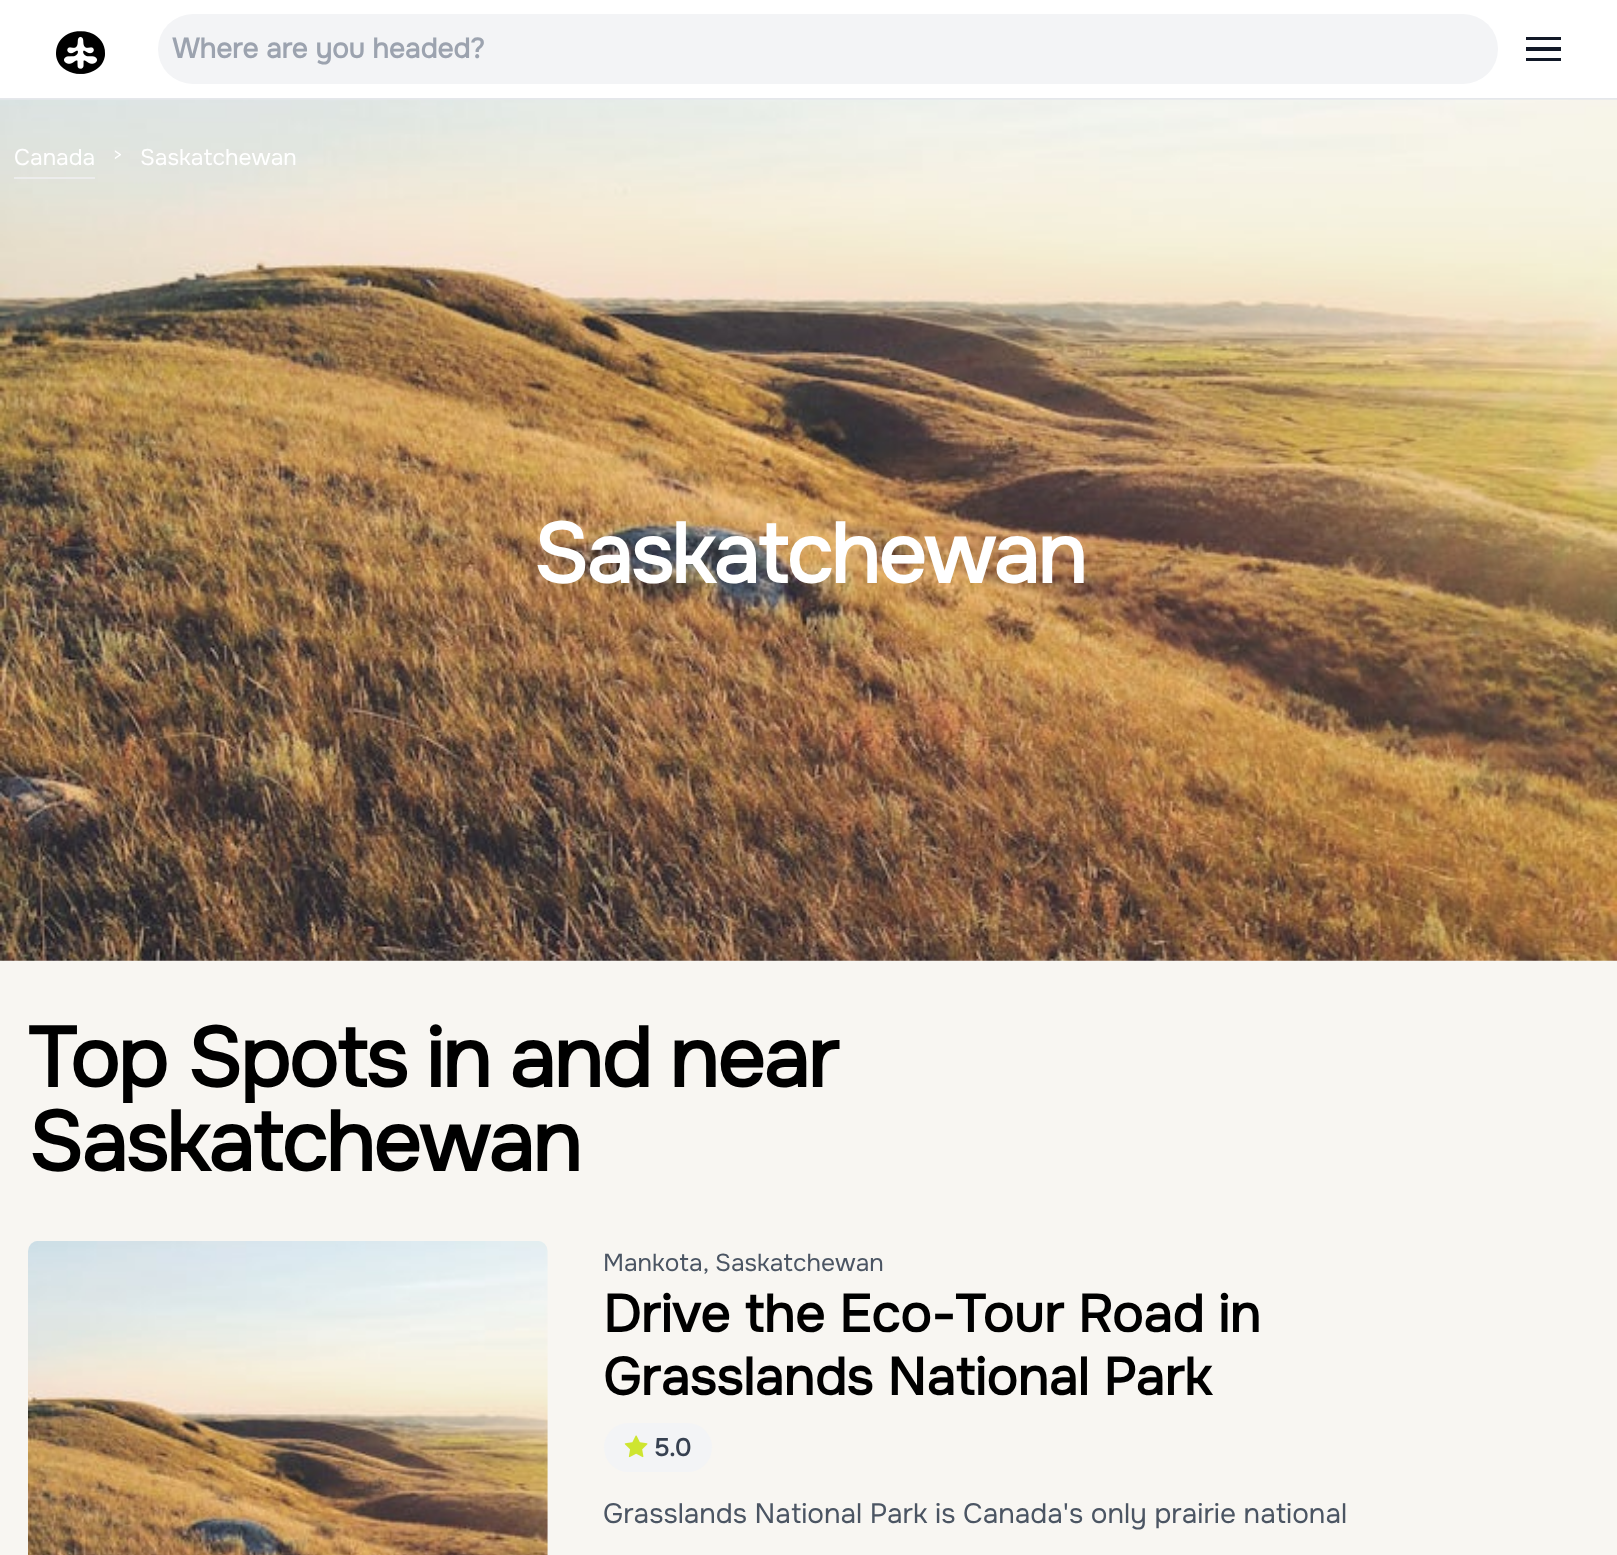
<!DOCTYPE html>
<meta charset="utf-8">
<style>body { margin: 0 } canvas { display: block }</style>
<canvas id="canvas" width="1617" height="1555"></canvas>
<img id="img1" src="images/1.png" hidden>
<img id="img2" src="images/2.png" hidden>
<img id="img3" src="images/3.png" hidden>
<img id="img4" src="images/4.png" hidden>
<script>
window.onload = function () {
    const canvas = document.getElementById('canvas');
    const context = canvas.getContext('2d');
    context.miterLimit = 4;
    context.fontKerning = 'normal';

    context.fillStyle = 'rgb(248, 246, 242)';
    context.fillRect(0, 0, 1617, 1555);
    context.fillStyle = 'rgb(255, 255, 255)';
    context.fillRect(0, 0, 1617, 98);
    context.fillStyle = 'rgb(229, 231, 235)';
    context.fillRect(0, 98, 1617, 2);
    context.drawImage(document.getElementById('img1'), 56, 31, 49, 43);
    context.fillStyle = 'rgb(243, 244, 246)';
    context.beginPath();
    context.roundRect(158, 14, 1340, 70, 35);
    context.fill();
    context.fillStyle = 'rgb(17, 24, 39)';
    context.beginPath();
    context.moveTo(1526, 37);
    context.lineTo(1561, 37);
    context.lineTo(1561, 40);
    context.lineTo(1526, 40);
    context.closePath();
    context.moveTo(1526, 47);
    context.lineTo(1561, 47);
    context.lineTo(1561, 51);
    context.lineTo(1526, 51);
    context.closePath();
    context.moveTo(1526, 58);
    context.lineTo(1561, 58);
    context.lineTo(1561, 61);
    context.lineTo(1526, 61);
    context.closePath();
    context.fill();
    context.drawImage(document.getElementById('img2'), 0, 99, 1617, 862);
    context.fillStyle = 'rgb(236, 236, 236)';
    context.fillRect(14, 177, 81, 2);
    context.drawImage(document.getElementById('img3'), 28, 1241, 520, 314);
    context.fillStyle = 'rgb(243, 244, 246)';
    context.beginPath();
    context.roundRect(604, 1423, 108, 49, 24.5);
    context.fill();
    context.drawImage(document.getElementById('img4'), 624, 1435, 24, 23);
    context.font = 'bold 28px Onest';
    context.fillStyle = 'rgb(156, 163, 175)';
    context.fillText('Where are you headed?', 172, 58);
    context.font = '22.75px Onest';
    context.fillStyle = 'rgb(255, 255, 255)';
    context.fillText('Canada', 14, 165);
    context.font = '18px Onest';
    context.fillText('>', 113, 161);
    context.font = '22.75px Onest';
    context.fillText('Saskatchewan', 140, 165);
    context.letterSpacing = '-2.1px';
    context.font = 'bold 84px Onest';
    context.fillText('Saskatchewan', 533, 583);
    context.fillStyle = 'rgb(0, 0, 0)';
    context.fillText('Top', 28, 1087);
    context.wordSpacing = '-1px';
    context.fillText('Spots in and near', 187, 1087);
    context.wordSpacing = '0px';
    context.fillText('Saskatchewan', 28, 1171);
    context.letterSpacing = '0px';
    context.font = '24.5px Onest';
    context.fillStyle = 'rgb(75, 85, 99)';
    context.fillText('Mankota, Saskatchewan', 603, 1271);
    context.font = 'bold 52.5px Onest';
    context.fillStyle = 'rgb(0, 0, 0)';
    context.fillText('Drive the Eco-Tour Road in', 603, 1332);
    context.fillText('Grasslands National Park', 603, 1395);
    context.font = 'bold 24.5px Onest';
    context.fillStyle = 'rgb(55, 65, 81)';
    context.fillText('5.0', 654, 1456);
    context.font = '28px Onest';
    context.fillStyle = 'rgb(75, 85, 99)';
    context.fillText('Grasslands National Park is Canada\'s only prairie national', 603, 1523);
};
</script>
